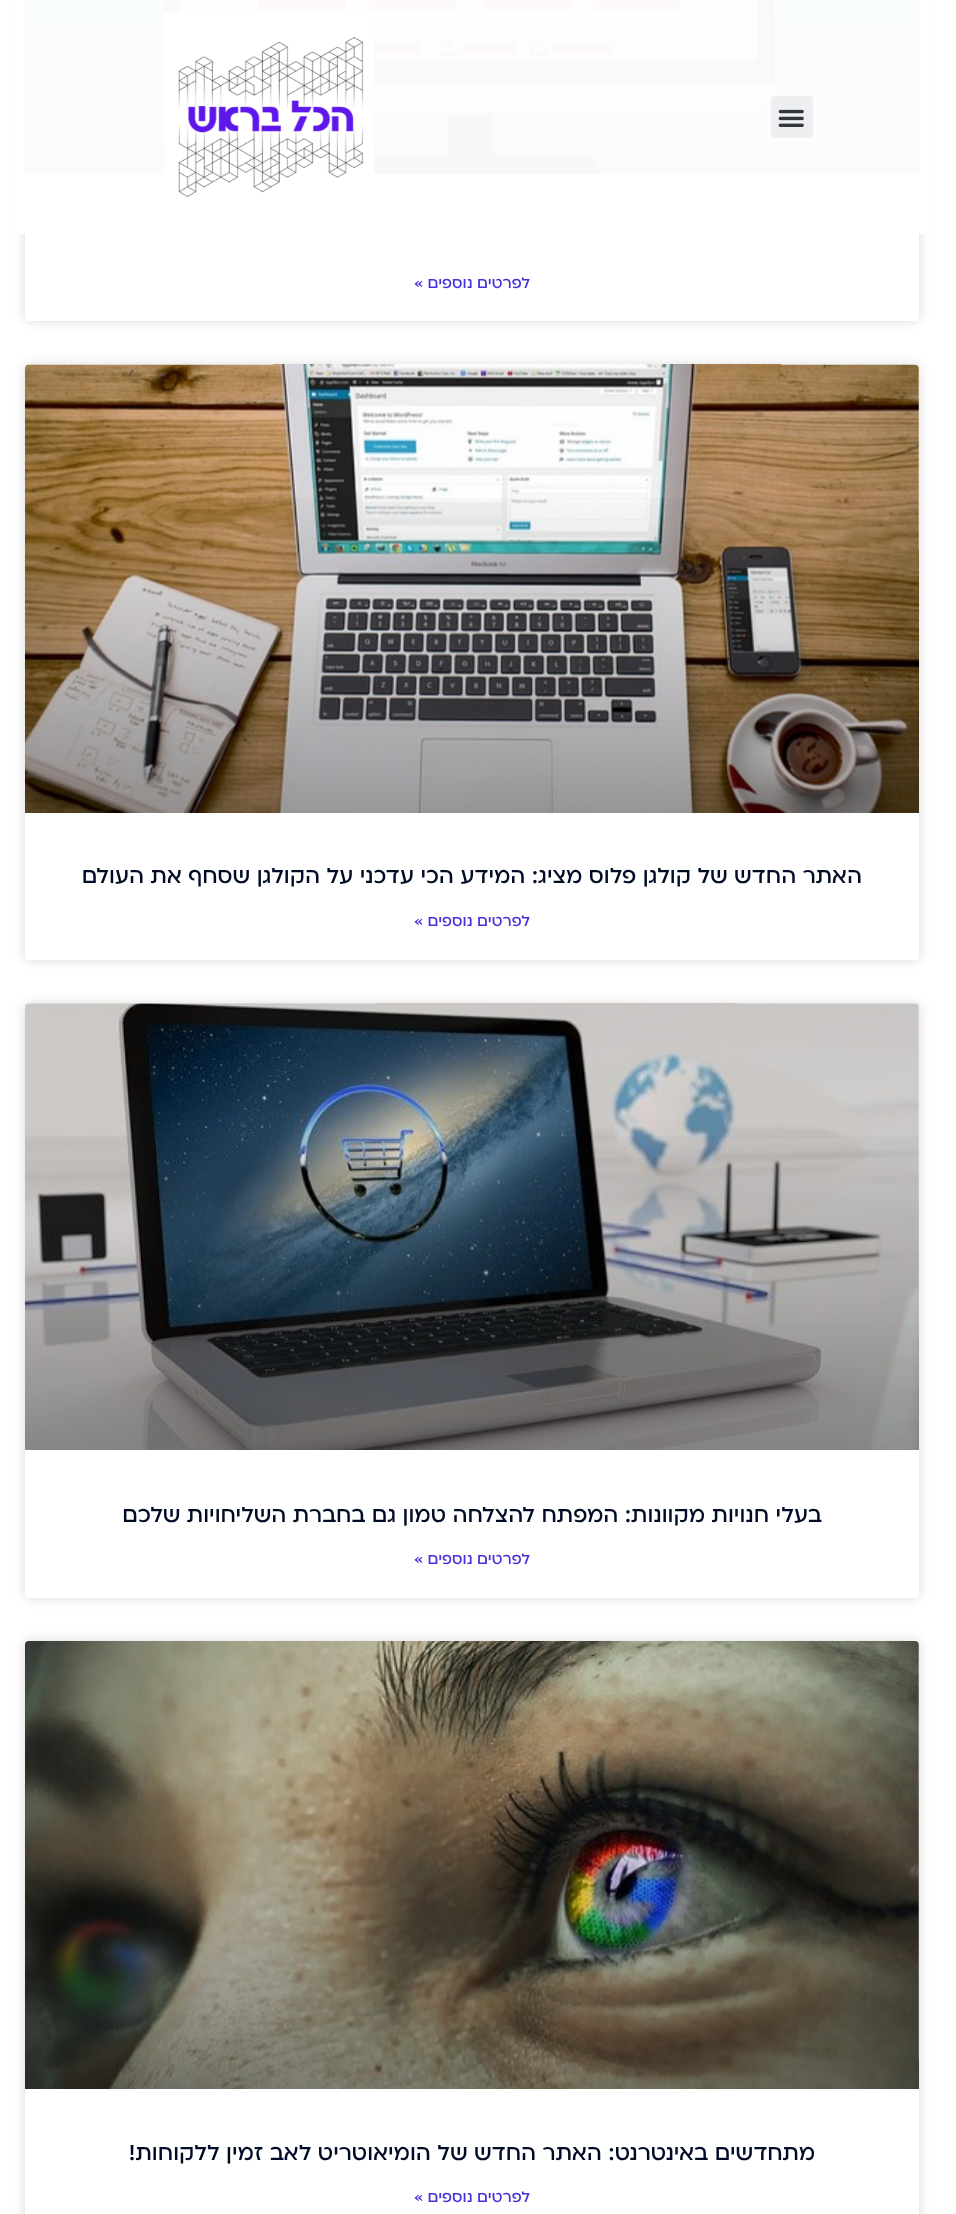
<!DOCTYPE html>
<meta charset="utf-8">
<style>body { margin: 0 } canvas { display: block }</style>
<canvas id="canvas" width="956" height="2214"></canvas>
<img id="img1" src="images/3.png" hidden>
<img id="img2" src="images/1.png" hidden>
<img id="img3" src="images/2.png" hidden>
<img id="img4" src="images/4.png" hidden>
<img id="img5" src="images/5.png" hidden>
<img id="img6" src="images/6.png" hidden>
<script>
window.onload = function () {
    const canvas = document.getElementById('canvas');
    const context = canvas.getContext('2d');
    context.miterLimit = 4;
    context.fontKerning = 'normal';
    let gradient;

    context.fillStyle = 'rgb(255, 255, 255)';
    context.fillRect(0, 0, 956, 2214);
    context.fillStyle = 'rgba(0, 0, 0, 0.15)';
    context.filter = 'blur(6px)';
    context.beginPath();
    context.roundRect(25, -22, 894, 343, 4);
    context.fill();
    context.filter = 'none';
    context.fillStyle = 'rgb(255, 255, 255)';
    context.beginPath();
    context.roundRect(25, -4, 894, 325, 4);
    context.fill();
    context.drawImage(document.getElementById('img1'), 25, 0, 894, 174);
    context.fillStyle = 'rgba(255, 255, 255, 0.97)';
    context.fillRect(16, 0, 912, 234);
    context.fillStyle = 'rgb(238, 239, 240)';
    context.beginPath();
    context.roundRect(771, 96, 42, 42, 4);
    context.fill();
    context.drawImage(document.getElementById('img2'), 778, 109, 26, 18);
    context.drawImage(document.getElementById('img3'), 165, 13, 209, 184);
    context.fillStyle = 'rgba(0, 0, 0, 0.15)';
    context.filter = 'blur(6px)';
    context.beginPath();
    context.roundRect(25, 365, 894, 595, 4);
    context.fill();
    context.filter = 'none';
    context.fillStyle = 'rgb(255, 255, 255)';
    context.beginPath();
    context.roundRect(25, 365, 894, 595, 4);
    context.fill();
    context.drawImage(document.getElementById('img4'), 25, 364, 894, 449);
    gradient = context.createLinearGradient(472, 813, 472, 365);
    gradient.addColorStop(0, 'rgba(0, 0, 0, 0.35)');
    gradient.addColorStop(0.75, 'rgba(0, 0, 0, 0)');
    context.fillStyle = gradient;
    context.fillRect(25, 498, 894, 315);
    context.fillStyle = 'rgba(0, 0, 0, 0.15)';
    context.filter = 'blur(6px)';
    context.beginPath();
    context.roundRect(25, 1004, 894, 594, 4);
    context.fill();
    context.filter = 'none';
    context.fillStyle = 'rgb(255, 255, 255)';
    context.beginPath();
    context.roundRect(25, 1004, 894, 594, 4);
    context.fill();
    context.drawImage(document.getElementById('img5'), 25, 1003, 894, 447);
    gradient = context.createLinearGradient(472, 1450, 472, 1004);
    gradient.addColorStop(0, 'rgba(0, 0, 0, 0.35)');
    gradient.addColorStop(0.75, 'rgba(0, 0, 0, 0)');
    context.fillStyle = gradient;
    context.fillRect(25, 1136, 894, 314);
    context.fillStyle = 'rgba(0, 0, 0, 0.15)';
    context.filter = 'blur(6px)';
    context.beginPath();
    context.roundRect(25, 1641, 894, 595, 4);
    context.fill();
    context.filter = 'none';
    context.fillStyle = 'rgb(255, 255, 255)';
    context.beginPath();
    context.roundRect(25, 1641, 894, 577, 4);
    context.fill();
    context.drawImage(document.getElementById('img6'), 25, 1641, 894, 448);
    gradient = context.createLinearGradient(472, 2089, 472, 1641);
    gradient.addColorStop(0, 'rgba(0, 0, 0, 0.35)');
    gradient.addColorStop(0.75, 'rgba(0, 0, 0, 0)');
    context.fillStyle = gradient;
    context.fillRect(25, 1774, 894, 315);
    context.direction = 'rtl';
    context.font = '500 17.5px "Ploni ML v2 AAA"';
    context.fillStyle = 'rgb(70, 50, 218)';
    context.fillText('לפרטים נוספים »', 530, 288);
    context.font = '500 25px "Ploni ML v2 AAA"';
    context.fillStyle = 'rgb(0, 12, 37)';
    context.fillText('האתר החדש של קולגן פלוס מציג: המידע הכי עדכני על הקולגן שסחף את העולם', 862, 883);
    context.font = '500 17.5px "Ploni ML v2 AAA"';
    context.fillStyle = 'rgb(70, 50, 218)';
    context.fillText('לפרטים נוספים »', 530, 926);
    context.font = '500 25px "Ploni ML v2 AAA"';
    context.fillStyle = 'rgb(0, 12, 37)';
    context.fillText('בעלי חנויות מקוונות: המפתח להצלחה טמון גם בחברת השליחויות שלכם', 822, 1522);
    context.font = '500 17.5px "Ploni ML v2 AAA"';
    context.fillStyle = 'rgb(70, 50, 218)';
    context.fillText('לפרטים נוספים »', 530, 1564);
    context.font = '500 25px "Ploni ML v2 AAA"';
    context.fillStyle = 'rgb(0, 12, 37)';
    context.fillText('מתחדשים באינטרנט: האתר החדש של הומיאוטריט לאב זמין ללקוחות!', 815, 2160);
    context.font = '500 17.5px "Ploni ML v2 AAA"';
    context.fillStyle = 'rgb(70, 50, 218)';
    context.fillText('לפרטים נוספים »', 530, 2202);
};
</script>
